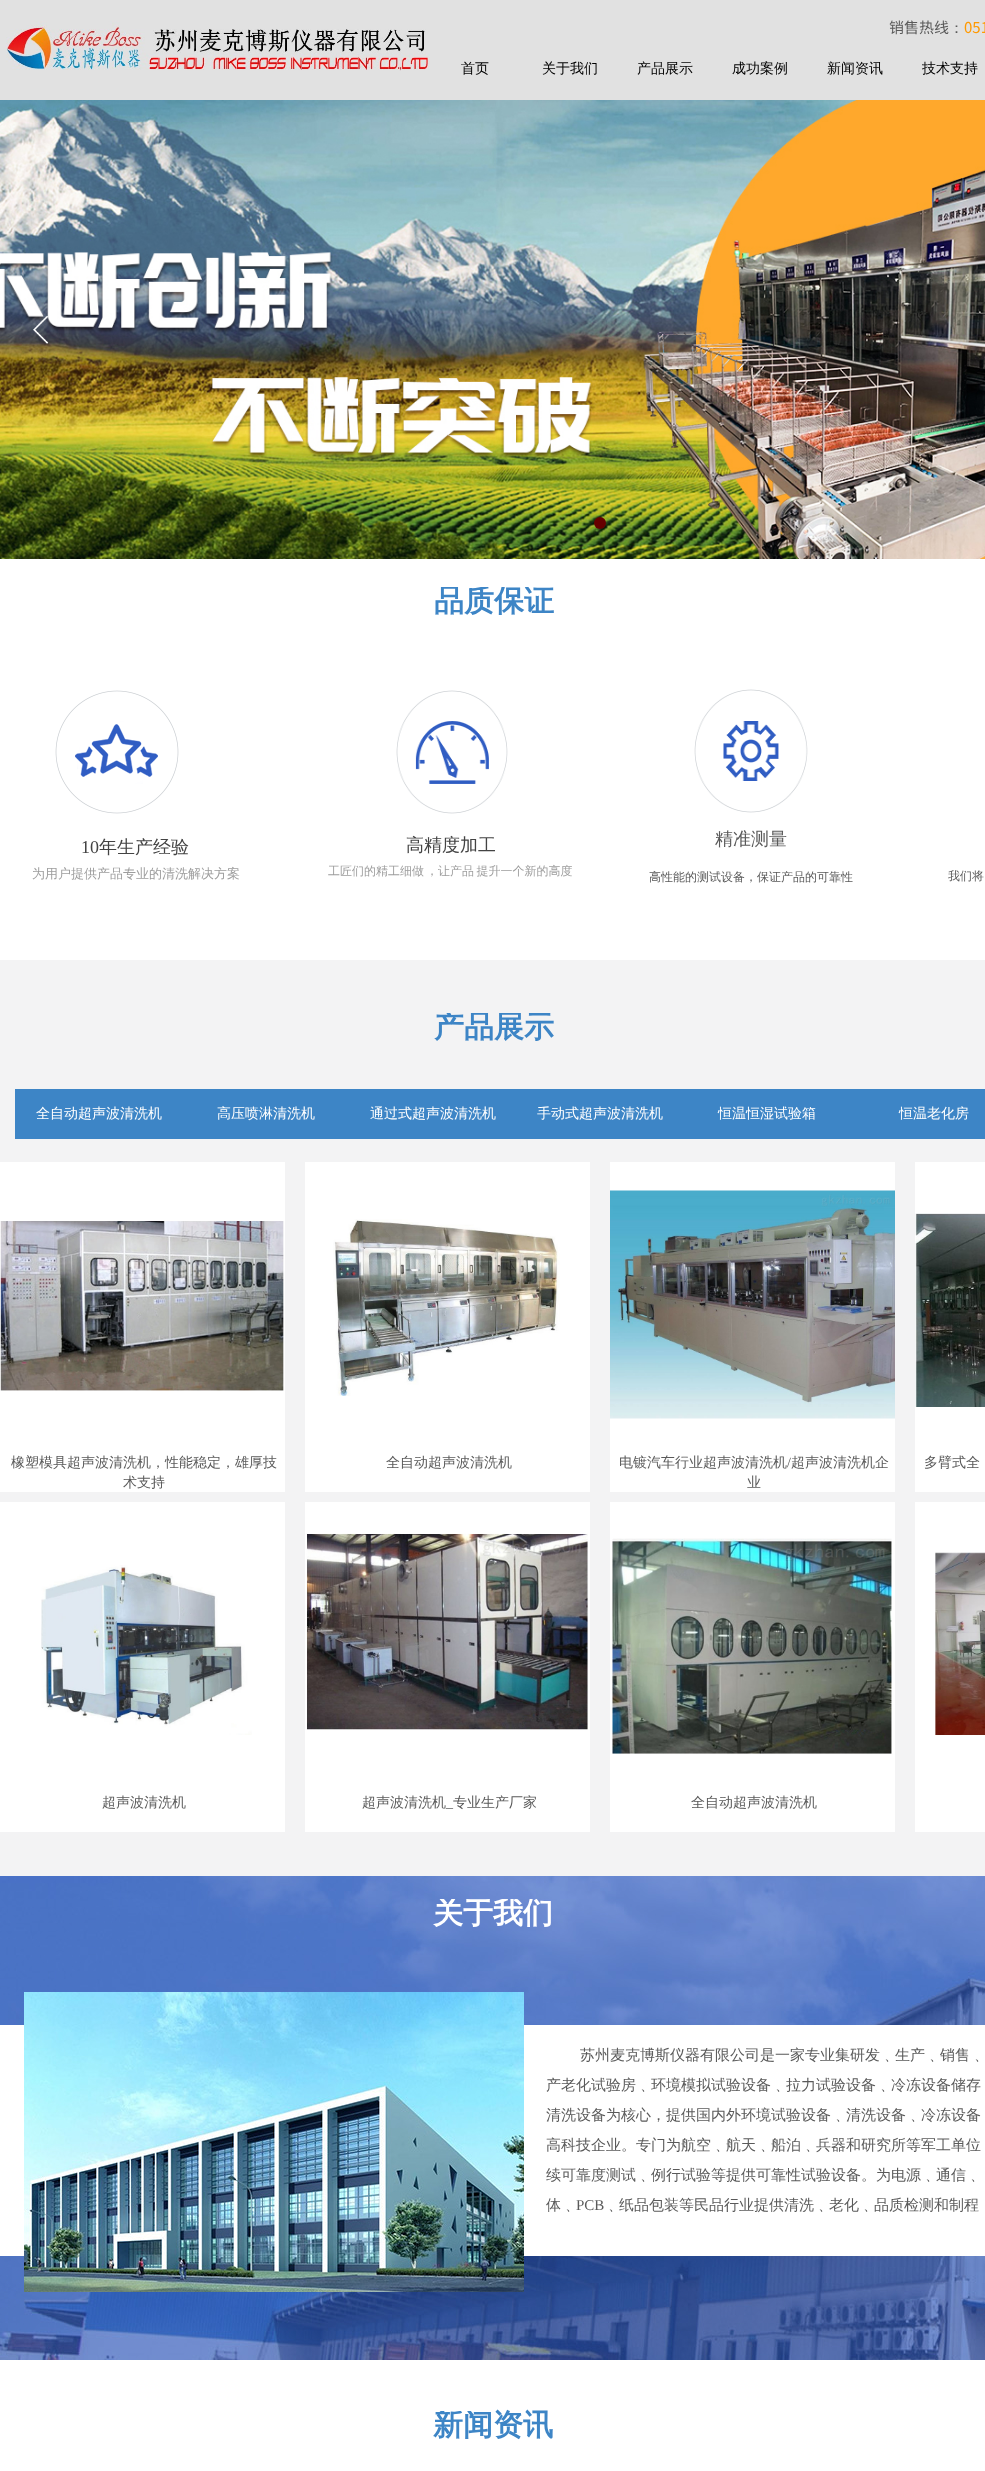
<!DOCTYPE html>
<meta charset="utf-8">
<style>body { margin: 0 } canvas { display: block }</style>
<canvas id="canvas" width="985" height="2471"></canvas>
<img id="img1" src="images/1.png" hidden>
<img id="img2" src="images/2.png" hidden>
<img id="img3" src="images/3.png" hidden>
<img id="img4" src="images/4.png" hidden>
<img id="img5" src="images/5.png" hidden>
<img id="img6" src="images/6.png" hidden>
<img id="img7" src="images/7.png" hidden>
<img id="img8" src="images/8.png" hidden>
<img id="img9" src="images/9.png" hidden>
<img id="img10" src="images/10.png" hidden>
<img id="img11" src="images/11.png" hidden>
<img id="img12" src="images/12.png" hidden>
<img id="img13" src="images/13.png" hidden>
<img id="img14" src="images/14.png" hidden>
<img id="img15" src="images/15.png" hidden>
<img id="img16" src="images/16.png" hidden>
<script>
window.onload = function () {
    const canvas = document.getElementById('canvas');
    const context = canvas.getContext('2d');
    context.miterLimit = 4;
    context.fontKerning = 'normal';

    context.fillStyle = 'rgb(255, 255, 255)';
    context.fillRect(0, 0, 985, 2471);
    context.fillStyle = 'rgb(225, 225, 225)';
    context.fillRect(0, 0, 985, 100);
    context.drawImage(document.getElementById('img1'), 6, 21, 424, 50);
    context.drawImage(document.getElementById('img2'), 0, 100, 985, 459);
    context.drawImage(document.getElementById('img3'), 32, 315, 17, 29);
    context.fillStyle = 'rgb(102, 0, 0)';
    context.beginPath();
    context.arc(600, 523, 6, 0, 2 * Math.PI);
    context.fill();
    context.drawImage(document.getElementById('img4'), 55, 690, 124, 124);
    context.drawImage(document.getElementById('img5'), 396, 690, 112, 124);
    context.drawImage(document.getElementById('img6'), 694, 689, 114, 124);
    context.fillStyle = 'rgb(243, 243, 244)';
    context.fillRect(0, 960, 985, 916);
    context.fillStyle = 'rgb(61, 133, 198)';
    context.fillRect(15, 1089, 970, 50);
    context.fillStyle = 'rgb(255, 255, 255)';
    context.fillRect(0, 1162, 285, 330);
    context.drawImage(document.getElementById('img7'), 0, 1221, 284, 170);
    context.fillRect(305, 1162, 285, 330);
    context.drawImage(document.getElementById('img8'), 333, 1219, 227, 177);
    context.fillRect(610, 1162, 285, 330);
    context.drawImage(document.getElementById('img9'), 610, 1190, 285, 229);
    context.fillRect(915, 1162, 70, 330);
    context.drawImage(document.getElementById('img10'), 915, 1213, 70, 194);
    context.fillRect(0, 1502, 285, 330);
    context.drawImage(document.getElementById('img11'), 41, 1565, 211, 170);
    context.fillRect(305, 1502, 285, 330);
    context.drawImage(document.getElementById('img12'), 306, 1533, 282, 197);
    context.fillRect(610, 1502, 285, 330);
    context.drawImage(document.getElementById('img13'), 612, 1538, 280, 216);
    context.fillRect(915, 1502, 70, 330);
    context.drawImage(document.getElementById('img14'), 935, 1552, 50, 184);
    context.drawImage(document.getElementById('img15'), 0, 1876, 985, 484);
    context.fillRect(0, 2025, 985, 231);
    context.drawImage(document.getElementById('img16'), 24, 1992, 500, 300);
    context.font = '15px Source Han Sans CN';
    context.fillStyle = 'rgb(90, 90, 90)';
    context.fillText('销售热线', 889, 33);
    context.font = '500 15px WenQuanYi Zen Hei';
    context.fillText('：', 949, 33);
    context.font = '15px Source Han Sans CN';
    context.fillStyle = 'rgb(255, 153, 0)';
    context.fillText('051', 964, 33);
    context.font = '500 14px WenQuanYi Zen Hei';
    context.fillStyle = 'rgb(0, 0, 0)';
    context.fillText('首页', 461, 73);
    context.fillText('关于我们', 542, 73);
    context.fillText('产品展示', 637, 73);
    context.fillText('成功案例', 732, 73);
    context.fillText('新闻资讯', 827, 73);
    context.fillText('技术支持', 922, 73);
    context.save();
    context.beginPath();
    context.rect(434, 587, 332, 71);
    context.clip();
    context.font = 'bold 30px WenQuanYi Zen Hei';
    context.fillStyle = 'rgb(61, 133, 198)';
    context.fillText('品质保证', 434, 611);
    context.restore();
    context.font = '18px Liberation Serif';
    context.fillStyle = 'rgb(67, 67, 67)';
    context.fillText('10', 81, 853);
    context.font = '500 18px WenQuanYi Zen Hei';
    context.fillText('年生产经验', 99, 853);
    context.font = '500 13px WenQuanYi Zen Hei';
    context.fillStyle = 'rgb(157, 157, 157)';
    context.fillText('为用户提供产品专业的清洗解决方案', 32, 878);
    context.font = '500 18px WenQuanYi Zen Hei';
    context.fillStyle = 'rgb(67, 67, 67)';
    context.fillText('高精度加工', 406, 851);
    context.font = '500 12px WenQuanYi Zen Hei';
    context.fillStyle = 'rgb(157, 157, 157)';
    context.fillText('工匠们的精工细做', 328, 875);
    context.wordSpacing = '-1px';
    context.fillText('，让产品 提升一个新的高度', 426, 875);
    context.wordSpacing = '0px';
    context.font = '500 18px WenQuanYi Zen Hei';
    context.fillStyle = 'rgb(90, 90, 90)';
    context.fillText('精准测量', 715, 845);
    context.font = '500 12px WenQuanYi Zen Hei';
    context.fillText('高性能的测试设备，保证产品的可靠性', 649, 881);
    context.fillText('我们将', 948, 880);
    context.save();
    context.beginPath();
    context.rect(434, 1013, 332, 71);
    context.clip();
    context.font = 'bold 30px WenQuanYi Zen Hei';
    context.fillStyle = 'rgb(61, 133, 198)';
    context.fillText('产品展示', 434, 1037);
    context.restore();
    context.font = '500 14px WenQuanYi Zen Hei';
    context.fillStyle = 'rgb(255, 255, 255)';
    context.fillText('全自动超声波清洗机', 36, 1118);
    context.fillText('高压喷淋清洗机', 217, 1118);
    context.fillText('通过式超声波清洗机', 370, 1118);
    context.fillText('手动式超声波清洗机', 537, 1118);
    context.fillText('恒温恒湿试验箱', 718, 1118);
    context.fillText('恒温老化房', 899, 1118);
    context.fillStyle = 'rgb(90, 90, 90)';
    context.fillText('橡塑模具超声波清洗机，性能稳定，雄厚技', 11, 1467);
    context.fillText('术支持', 123, 1487);
    context.fillText('全自动超声波清洗机', 386, 1467);
    context.fillText('电镀汽车行业超声波清洗机', 619, 1467);
    context.font = '14px Liberation Serif';
    context.fillText('/', 787, 1467);
    context.font = '500 14px WenQuanYi Zen Hei';
    context.fillText('超声波清洗机企', 791, 1467);
    context.fillText('业', 747, 1487);
    context.fillText('多臂式全', 924, 1467);
    context.fillText('超声波清洗机', 102, 1807);
    context.fillText('超声波清洗机', 362, 1807);
    context.font = '14px Liberation Serif';
    context.fillText('_', 446, 1807);
    context.font = '500 14px WenQuanYi Zen Hei';
    context.fillText('专业生产厂家', 453, 1807);
    context.fillText('全自动超声波清洗机', 691, 1807);
    context.save();
    context.beginPath();
    context.rect(433, 1899, 332, 71);
    context.clip();
    context.font = 'bold 30px WenQuanYi Zen Hei';
    context.fillStyle = 'rgb(255, 255, 255)';
    context.fillText('关于我们', 433, 1923);
    context.restore();
    context.font = '500 15px WenQuanYi Zen Hei';
    context.fillText('苏州麦克博斯仪器有限公司是一家专业集研发﹑生产﹑销售﹑', 580, 2060);
    context.fillText('产老化试验房﹑环境模拟试验设备﹑拉力试验设备﹑冷冻设备储存', 546, 2090);
    context.fillText('清洗设备为核心，提供国内外环境试验设备﹑清洗设备﹑冷冻设备', 546, 2120);
    context.fillText('高科技企业。专门为航空﹑航天﹑船泊﹑兵器和研究所等军工单位', 546, 2150);
    context.fillText('续可靠度测试﹑例行试验等提供可靠性试验设备。为电源﹑通信﹑', 546, 2180);
    context.fillText('体﹑', 546, 2210);
    context.font = '15px Liberation Serif';
    context.fillText('PCB', 576, 2210);
    context.font = '500 15px WenQuanYi Zen Hei';
    context.fillText('﹑纸品包装等民品行业提供清洗﹑老化﹑品质检测和制程', 604, 2210);
    context.save();
    context.beginPath();
    context.rect(433, 2411, 332, 60);
    context.clip();
    context.font = 'bold 30px WenQuanYi Zen Hei';
    context.fillStyle = 'rgb(61, 133, 198)';
    context.fillText('新闻', 433, 2435);
    context.restore();
    context.font = 'bold 30px WenQuanYi Zen Hei';
    context.fillStyle = 'rgb(61, 133, 198)';
    context.fillText('资讯', 493, 2435);
};
</script>
